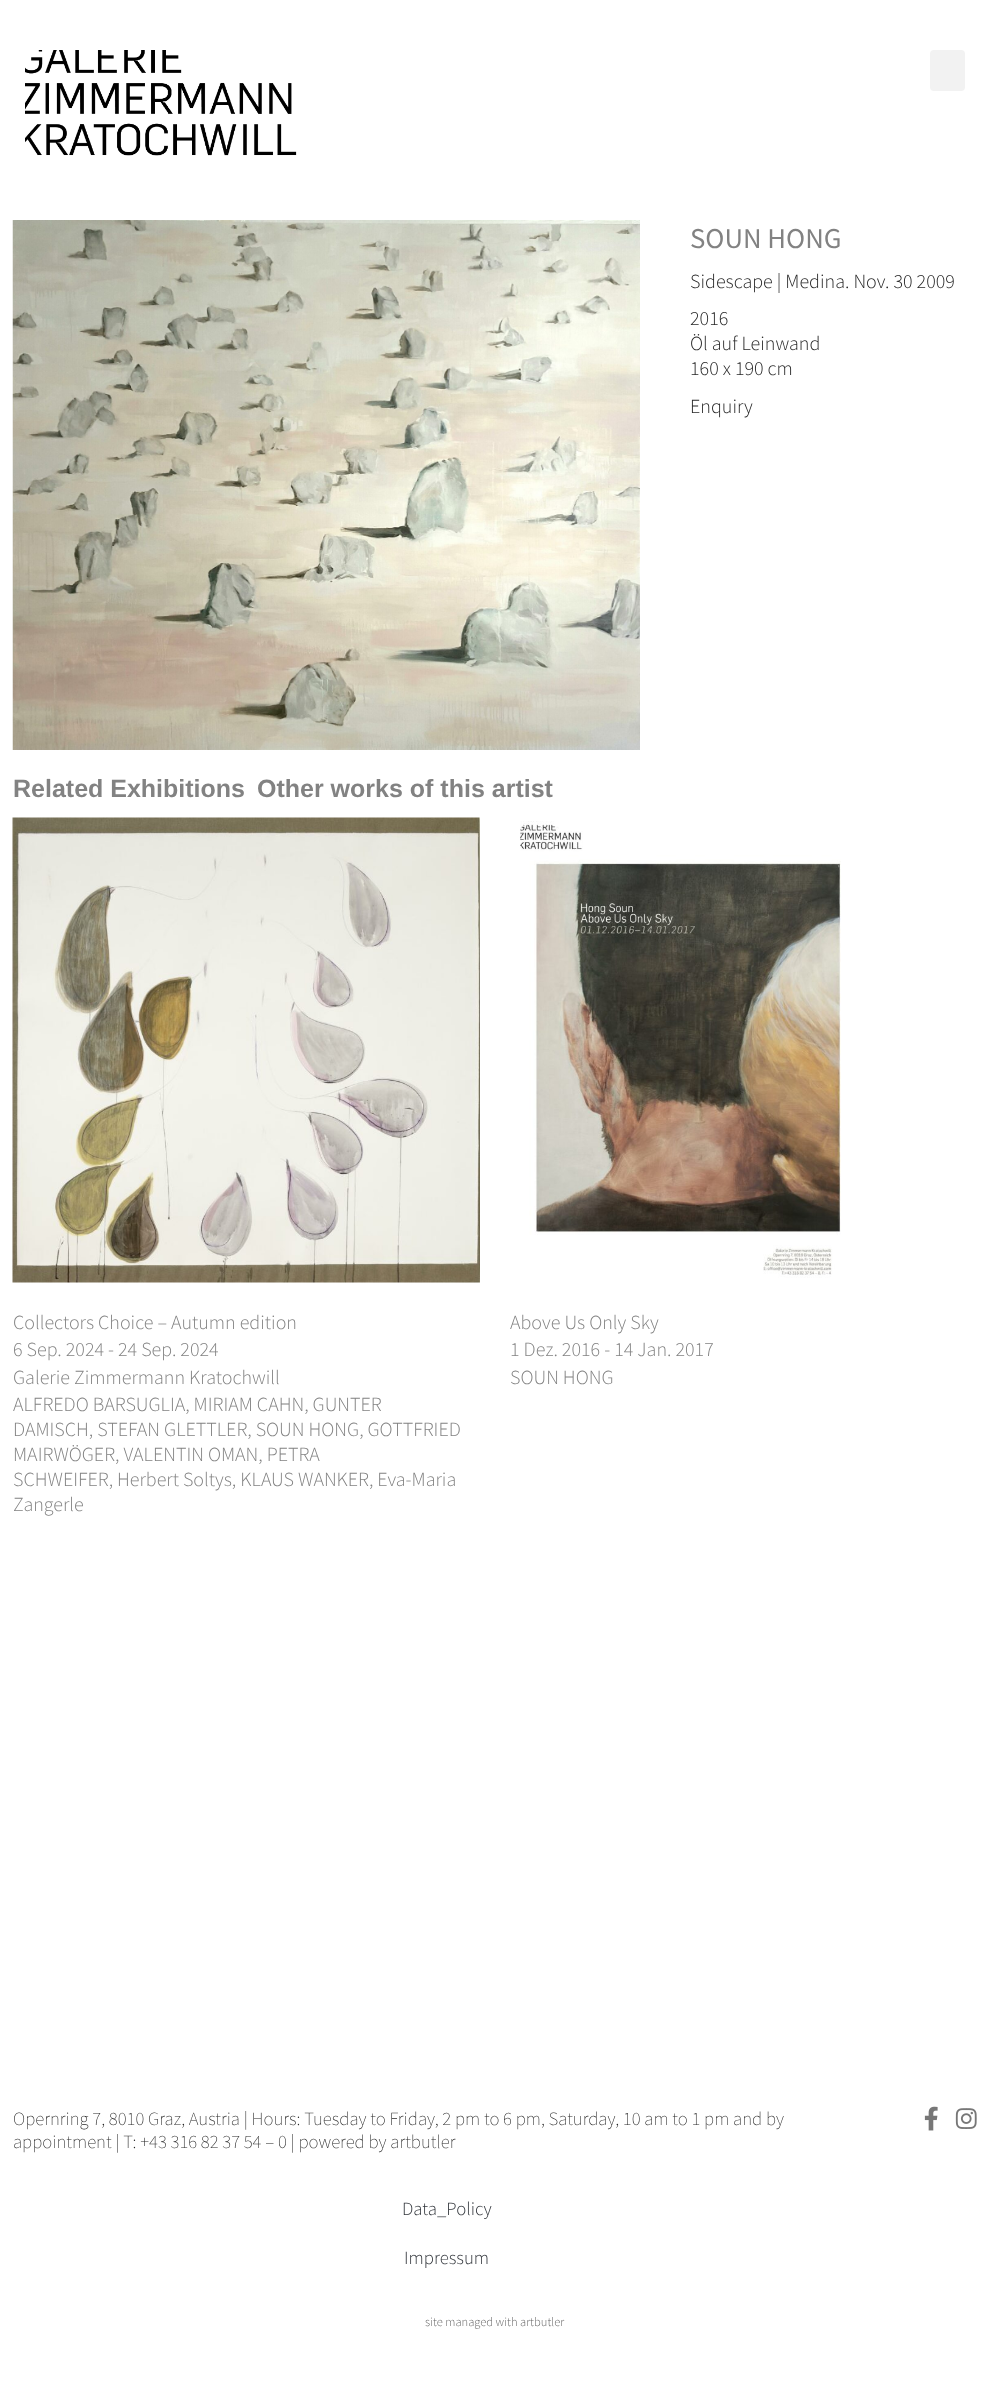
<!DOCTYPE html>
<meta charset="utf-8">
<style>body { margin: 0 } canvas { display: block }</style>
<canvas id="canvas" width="990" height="2381"></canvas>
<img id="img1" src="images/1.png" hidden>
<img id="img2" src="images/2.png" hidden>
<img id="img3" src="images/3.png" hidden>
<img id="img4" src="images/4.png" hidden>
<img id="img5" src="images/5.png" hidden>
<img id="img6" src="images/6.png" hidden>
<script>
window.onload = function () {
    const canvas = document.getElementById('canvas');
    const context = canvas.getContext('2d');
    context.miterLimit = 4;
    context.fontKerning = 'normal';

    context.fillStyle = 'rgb(255, 255, 255)';
    context.fillRect(0, 0, 990, 2381);
    context.drawImage(document.getElementById('img1'), 25, 50, 272, 106);
    context.fillStyle = 'rgb(242, 242, 242)';
    context.beginPath();
    context.roundRect(930, 50, 35, 41, 4);
    context.fill();
    context.drawImage(document.getElementById('img2'), 12, 220, 628, 530);
    context.drawImage(document.getElementById('img3'), 12, 817, 468, 466);
    context.drawImage(document.getElementById('img4'), 520, 821, 321, 457);
    context.drawImage(document.getElementById('img5'), 924, 2106, 14, 25);
    context.drawImage(document.getElementById('img6'), 955, 2108, 22, 21);
    context.font = '28.75px Source Sans Pro';
    context.fillStyle = 'rgb(130, 130, 130)';
    context.fillText('SOUN HONG', 690, 248);
    context.font = '300 20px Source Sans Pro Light';
    context.fillStyle = 'rgb(39, 39, 39)';
    context.fillText('Sidescape | Medina. Nov. 30 2009', 690, 288);
    context.fillText('2016', 690, 325);
    context.fillText('Öl auf Leinwand', 690, 350);
    context.fillText('160 x 190 cm', 690, 375);
    context.fillText('Enquiry', 690, 413);
    context.font = 'bold 25px Liberation Sans';
    context.fillStyle = 'rgb(130, 130, 130)';
    context.fillText('Related Exhibitions', 13, 797);
    context.fillText('Other works of this artist', 257, 797);
    context.font = '300 20px Source Sans Pro Light';
    context.fillText('Collectors Choice – Autumn edition', 13, 1329);
    context.fillText('6 Sep. 2024 - 24 Sep. 2024', 13, 1356);
    context.fillText('Galerie Zimmermann Kratochwill', 13, 1384);
    context.fillText('ALFREDO BARSUGLIA, MIRIAM CAHN, GUNTER', 13, 1411);
    context.fillText('DAMISCH, STEFAN GLETTLER, SOUN HONG, GOTTFRIED', 13, 1436);
    context.fillText('MAIRWÖGER, VALENTIN OMAN, PETRA', 13, 1461);
    context.fillText('SCHWEIFER, Herbert Soltys, KLAUS WANKER, Eva-Maria', 13, 1486);
    context.fillText('Zangerle', 13, 1511);
    context.fillText('Above Us Only Sky', 510, 1329);
    context.fillText('1 Dez. 2016 - 14 Jan. 2017', 510, 1356);
    context.fillText('SOUN HONG', 510, 1384);
    context.font = '200 18.75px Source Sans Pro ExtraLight';
    context.fillStyle = 'rgb(39, 39, 39)';
    context.fillText('Opernring 7, 8010 Graz, Austria | Hours: Tuesday to Friday, 2 pm to 6 pm, Saturday, 10 am to 1 pm and by', 13, 2125);
    context.fillText('appointment | T: +43 316 82 37 54 – 0 | powered by artbutler', 13, 2148);
    context.font = '300 18.75px Source Sans Pro Light';
    context.fillStyle = 'rgb(51, 55, 61)';
    context.fillText('Data_Policy', 402, 2215);
    context.fillText('Impressum', 404, 2264);
    context.font = '300 12.5px Source Sans Pro Light';
    context.fillStyle = 'rgb(102, 102, 102)';
    context.fillText('site managed with artbutler', 425, 2326);
};
</script>
